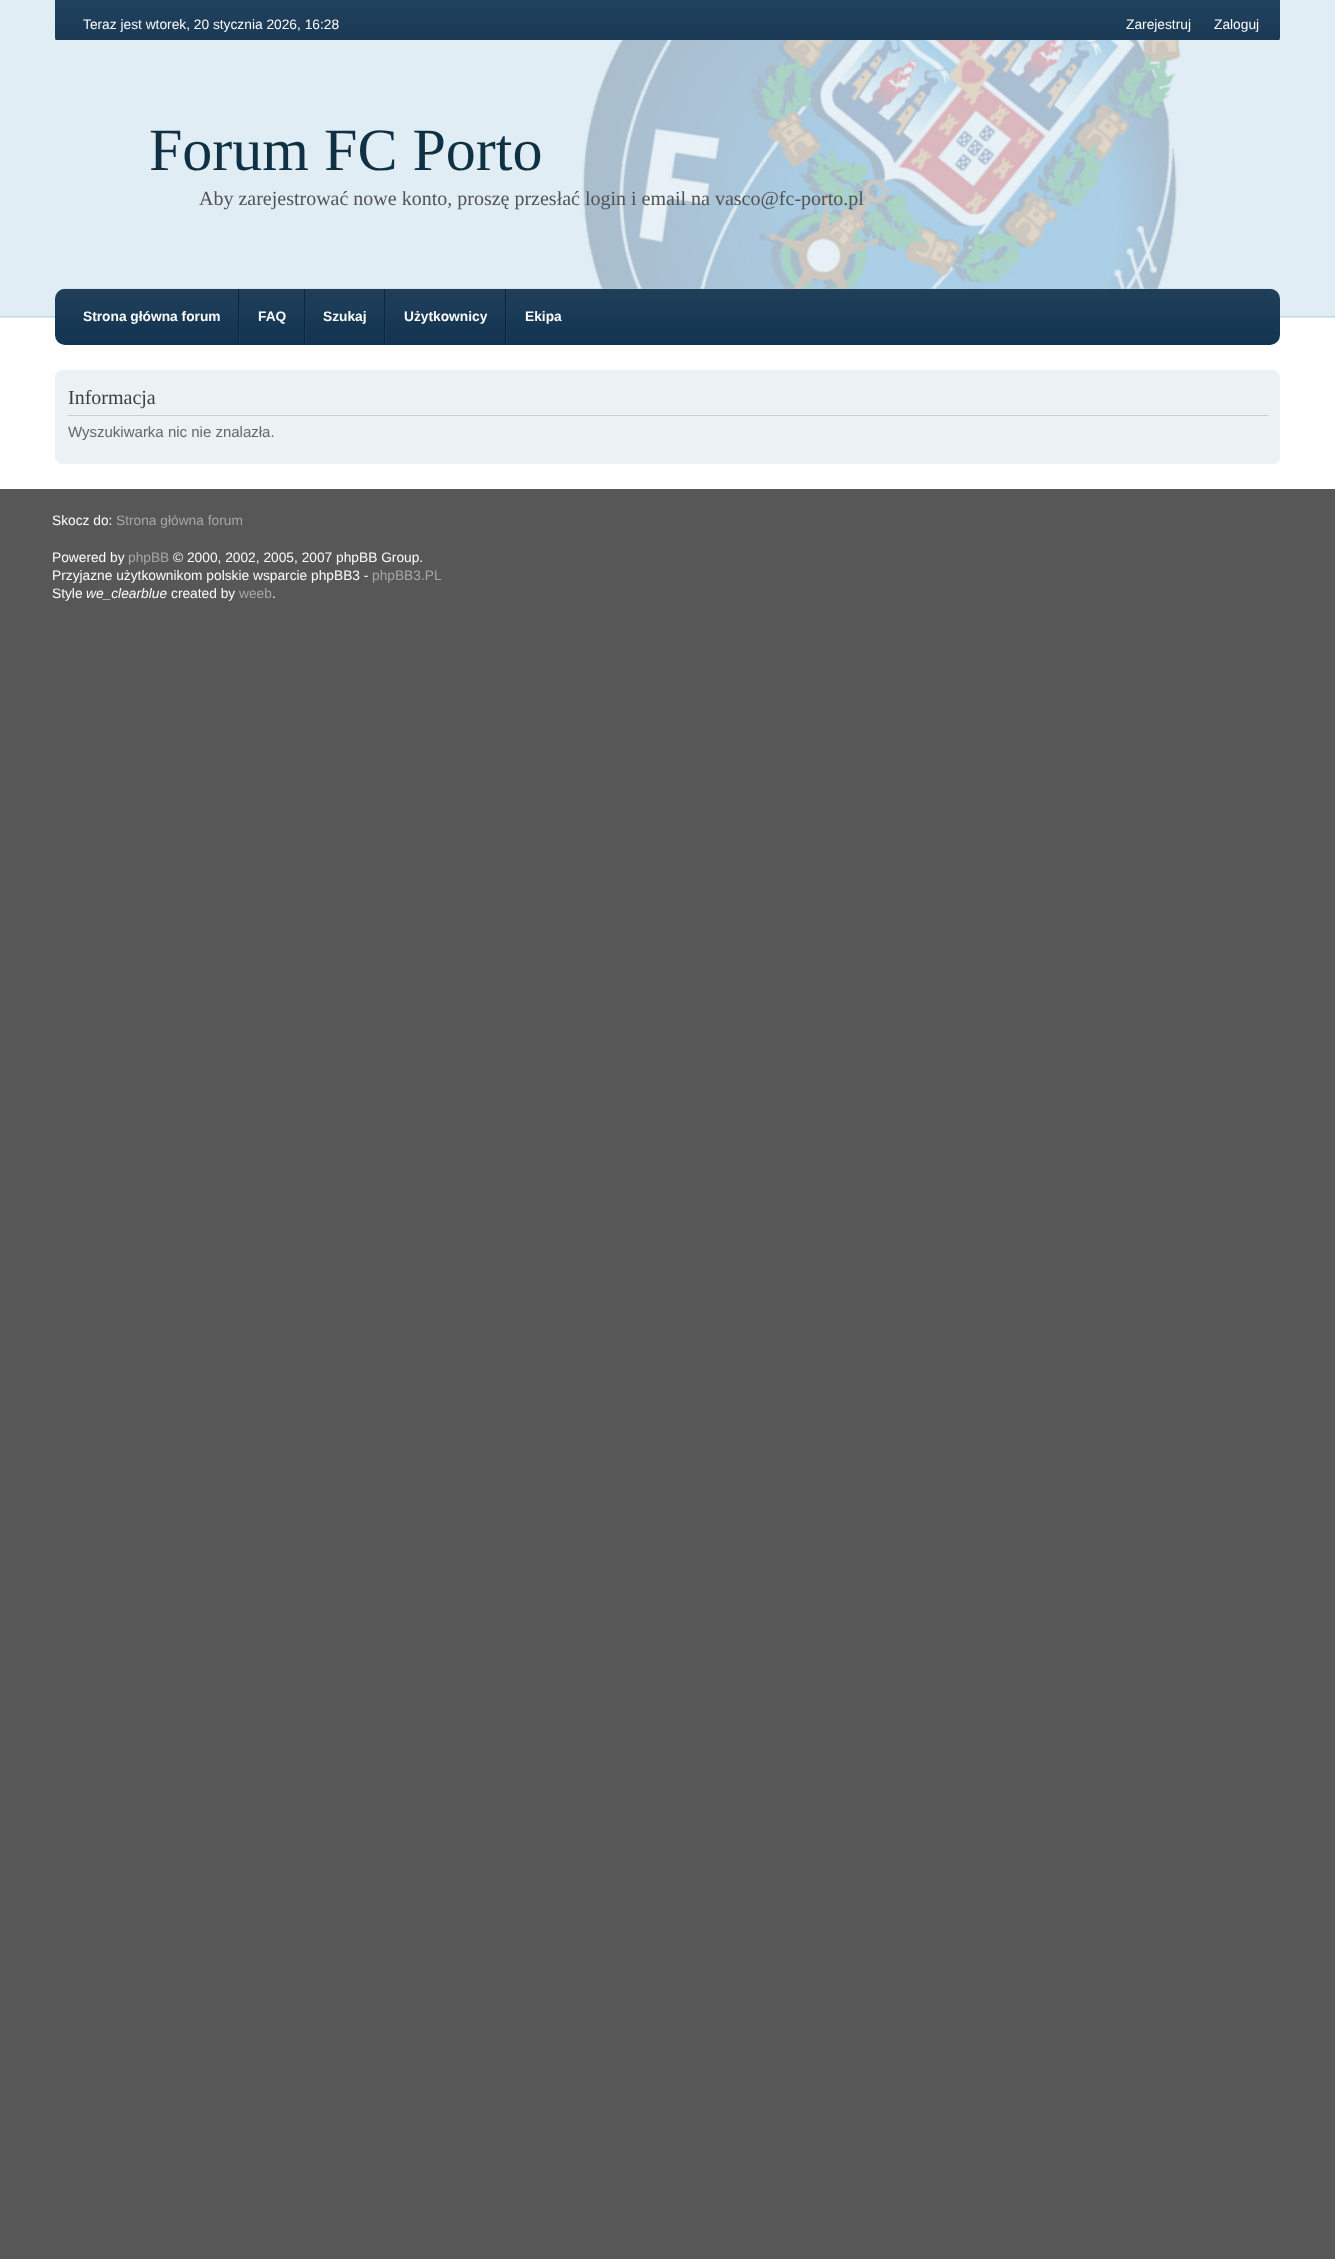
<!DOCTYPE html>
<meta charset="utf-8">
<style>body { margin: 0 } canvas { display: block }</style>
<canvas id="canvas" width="1335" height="2259"></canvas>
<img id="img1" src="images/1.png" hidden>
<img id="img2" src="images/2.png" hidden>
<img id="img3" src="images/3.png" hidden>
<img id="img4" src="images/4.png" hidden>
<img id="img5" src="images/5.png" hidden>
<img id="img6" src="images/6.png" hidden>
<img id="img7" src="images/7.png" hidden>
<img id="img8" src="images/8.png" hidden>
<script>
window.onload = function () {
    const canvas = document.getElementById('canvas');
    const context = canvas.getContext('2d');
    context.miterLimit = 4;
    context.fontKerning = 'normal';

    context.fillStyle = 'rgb(255, 255, 255)';
    context.fillRect(0, 0, 1335, 2259);
    context.drawImage(document.getElementById('img1'), 0, 0, 1335, 318);
    context.drawImage(document.getElementById('img2'), 55, 0, 1225, 40);
    context.drawImage(document.getElementById('img3'), 55, 40, 1225, 249);
    context.drawImage(document.getElementById('img4'), 55, 288, 1225, 57);
    context.fillStyle = 'rgb(16, 36, 53)';
    context.fillRect(238, 289, 1, 56);
    context.fillRect(304, 289, 1, 56);
    context.fillStyle = 'rgb(28, 62, 92)';
    context.fillRect(239, 289, 1, 56);
    context.fillStyle = 'rgb(16, 36, 53)';
    context.fillRect(384, 289, 1, 56);
    context.fillStyle = 'rgb(28, 62, 92)';
    context.fillRect(305, 289, 1, 56);
    context.fillStyle = 'rgb(16, 36, 53)';
    context.fillRect(505, 289, 1, 56);
    context.fillStyle = 'rgb(28, 62, 92)';
    context.fillRect(385, 289, 1, 56);
    context.fillRect(506, 289, 1, 56);
    context.fillStyle = 'rgb(236, 241, 243)';
    context.fillRect(55, 370, 1225, 94);
    context.drawImage(document.getElementById('img5'), 55, 370, 6, 6);
    context.drawImage(document.getElementById('img6'), 1274, 370, 6, 6);
    context.fillStyle = 'rgb(204, 204, 204)';
    context.fillRect(68, 415, 1200, 1);
    context.drawImage(document.getElementById('img7'), 55, 458, 6, 6);
    context.drawImage(document.getElementById('img8'), 1275, 458, 5, 6);
    context.fillStyle = 'rgb(88, 87, 87)';
    context.fillRect(0, 489, 1335, 1770);
    context.font = '13.75px Liberation Sans';
    context.fillStyle = 'rgb(251, 251, 251)';
    context.fillText('Teraz jest wtorek, 20 stycznia 2026, 16:28', 83, 29);
    context.fillText('Zarejestruj', 1126, 29);
    context.fillText('Zaloguj', 1214, 29);
    context.font = '60px Liberation Serif';
    context.fillStyle = 'rgb(16, 49, 67)';
    context.fillText('Forum FC Porto', 149, 170);
    context.font = '20px Liberation Serif';
    context.fillStyle = 'rgb(83, 83, 83)';
    context.fillText('Aby zarejestrować nowe konto, proszę przesłać login i email na vasco@fc-porto.pl', 199, 205);
    context.font = 'bold 13.75px Liberation Sans';
    context.fillStyle = 'rgb(251, 251, 251)';
    context.fillText('Strona główna forum', 83, 321);
    context.fillText('FAQ', 258, 321);
    context.fillText('Szukaj', 323, 321);
    context.fillText('Użytkownicy', 404, 321);
    context.fillText('Ekipa', 525, 321);
    context.font = '20px Liberation Serif';
    context.fillStyle = 'rgb(63, 63, 63)';
    context.fillText('Informacja', 68, 404);
    context.font = '15px Liberation Sans';
    context.fillStyle = 'rgb(102, 102, 102)';
    context.fillText('Wyszukiwarka nic nie znalazła.', 68, 437);
    context.font = '13.75px Liberation Sans';
    context.fillStyle = 'rgb(251, 251, 251)';
    context.fillText('Skocz do:', 52, 525);
    context.fillStyle = 'rgb(168, 166, 166)';
    context.fillText('Strona główna forum', 116, 525);
    context.fillStyle = 'rgb(251, 251, 251)';
    context.fillText('Powered by', 52, 562);
    context.fillStyle = 'rgb(168, 166, 166)';
    context.fillText('phpBB', 128, 562);
    context.fillStyle = 'rgb(251, 251, 251)';
    context.fillText('© 2000, 2002, 2005, 2007 phpBB Group.', 173, 562);
    context.fillText('Przyjazne użytkownikom polskie wsparcie phpBB3 -', 52, 580);
    context.fillStyle = 'rgb(168, 166, 166)';
    context.fillText('phpBB3.PL', 372, 580);
    context.fillStyle = 'rgb(251, 251, 251)';
    context.fillText('Style', 52, 598);
    context.font = 'italic 13.75px Liberation Sans';
    context.fillText('we_clearblue', 86, 598);
    context.font = '13.75px Liberation Sans';
    context.fillText('created by', 171, 598);
    context.fillStyle = 'rgb(168, 166, 166)';
    context.fillText('weeb', 239, 598);
    context.fillStyle = 'rgb(251, 251, 251)';
    context.fillText('.', 272, 598);
};
</script>
